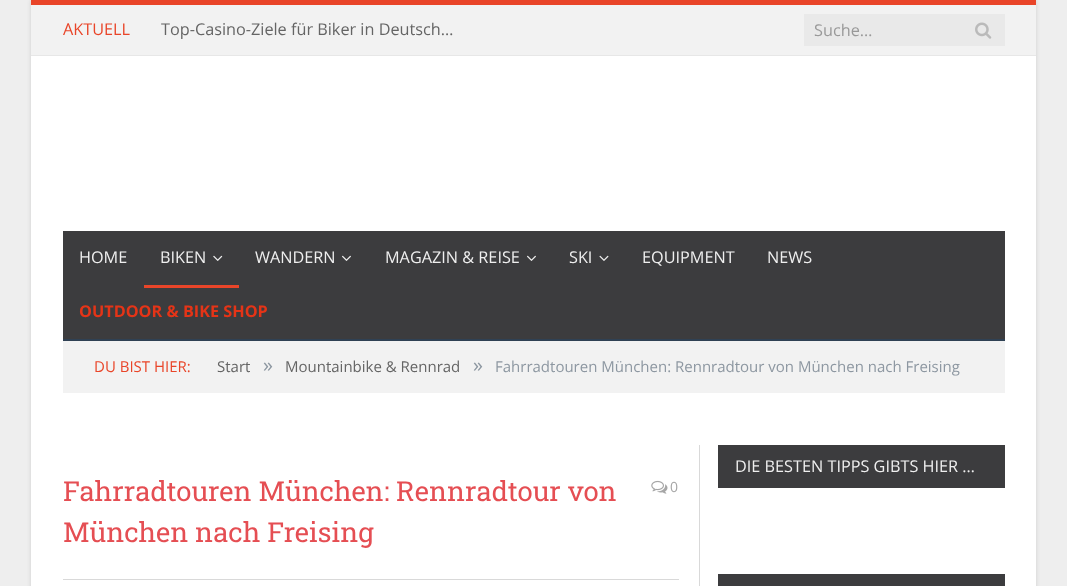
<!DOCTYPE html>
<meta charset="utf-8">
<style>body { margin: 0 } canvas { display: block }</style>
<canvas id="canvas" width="1067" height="586"></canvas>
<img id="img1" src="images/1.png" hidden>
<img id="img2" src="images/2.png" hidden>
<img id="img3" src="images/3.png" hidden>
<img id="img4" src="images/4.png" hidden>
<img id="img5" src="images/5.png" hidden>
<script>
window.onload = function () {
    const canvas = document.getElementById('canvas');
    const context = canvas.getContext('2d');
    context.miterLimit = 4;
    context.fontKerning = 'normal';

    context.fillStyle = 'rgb(238, 238, 238)';
    context.fillRect(0, 0, 1067, 586);
    context.fillStyle = 'rgba(0, 0, 0, 0.12)';
    context.filter = 'blur(2px)';
    context.beginPath();
    context.rect(31, 0, 1005, 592);
    context.fill();
    context.filter = 'none';
    context.fillStyle = 'rgb(255, 255, 255)';
    context.fillRect(31, 56, 1005, 530);
    context.fillStyle = 'rgb(242, 242, 242)';
    context.fillRect(31, 5, 1005, 50);
    context.fillStyle = 'rgb(233, 69, 41)';
    context.fillRect(31, 0, 1005, 5);
    context.fillStyle = 'rgb(231, 231, 231)';
    context.fillRect(31, 55, 1005, 1);
    context.fillStyle = 'rgb(233, 233, 233)';
    context.fillRect(804, 14, 201, 32);
    context.drawImage(document.getElementById('img1'), 975, 22, 17, 17);
    context.fillStyle = 'rgb(60, 60, 62)';
    context.fillRect(63, 231, 942, 108);
    context.fillStyle = 'rgb(47, 65, 84)';
    context.fillRect(63, 339, 942, 2);
    context.fillStyle = 'rgb(233, 69, 41)';
    context.fillRect(144, 285, 95, 3);
    context.drawImage(document.getElementById('img2'), 213, 255, 10, 6);
    context.drawImage(document.getElementById('img3'), 342, 255, 9, 6);
    context.drawImage(document.getElementById('img3'), 527, 255, 9, 6);
    context.drawImage(document.getElementById('img4'), 599, 255, 10, 6);
    context.fillStyle = 'rgb(242, 242, 242)';
    context.fillRect(63, 341, 942, 52);
    context.fillStyle = 'rgb(217, 217, 217)';
    context.fillRect(699, 445, 1, 141);
    context.fillStyle = 'rgb(60, 60, 62)';
    context.fillRect(718, 445, 287, 43);
    context.fillRect(718, 574, 287, 12);
    context.drawImage(document.getElementById('img5'), 651, 480, 17, 14);
    context.fillStyle = 'rgb(217, 217, 217)';
    context.fillRect(63, 579, 616, 1);
    context.font = '16.25px Open Sans';
    context.fillStyle = 'rgb(233, 69, 41)';
    context.fillText('AKTUELL', 63, 35);
    context.fillStyle = 'rgb(101, 101, 101)';
    context.fillText('Top-Casino-Ziele für Biker in Deutsch…', 161, 35);
    context.fillStyle = 'rgb(153, 153, 153)';
    context.fillText('Suche…', 814, 36);
    context.fillStyle = 'rgb(239, 239, 239)';
    context.fillText('HOME', 79, 263);
    context.fillText('BIKEN', 160, 263);
    context.fillText('WANDERN', 255, 263);
    context.fillText('MAGAZIN & REISE', 385, 263);
    context.fillText('SKI', 569, 263);
    context.fillText('EQUIPMENT', 642, 263);
    context.fillText('NEWS', 767, 263);
    context.font = 'bold 16.25px Open Sans';
    context.fillStyle = 'rgb(229, 52, 23)';
    context.fillText('OUTDOOR & BIKE SHOP', 79, 317);
    context.font = '15px Open Sans';
    context.fillStyle = 'rgb(233, 69, 41)';
    context.fillText('DU BIST HIER:', 94, 372);
    context.fillStyle = 'rgb(101, 101, 101)';
    context.fillText('Start', 217, 372);
    context.font = '20px Open Sans';
    context.fillStyle = 'rgb(141, 151, 161)';
    context.fillText('»', 263, 372);
    context.font = '15px Open Sans';
    context.fillStyle = 'rgb(101, 101, 101)';
    context.fillText('Mountainbike & Rennrad', 285, 372);
    context.font = '20px Open Sans';
    context.fillStyle = 'rgb(141, 151, 161)';
    context.fillText('»', 473, 372);
    context.font = '15px Open Sans';
    context.fillText('Fahrradtouren München: Rennradtour von München nach Freising', 495, 372);
    context.font = '16.25px Open Sans';
    context.fillStyle = 'rgb(239, 239, 239)';
    context.fillText('DIE BESTEN TIPPS GIBTS HIER …', 735, 472);
    context.font = '27.5px Roboto Slab';
    context.fillStyle = 'rgb(229, 78, 83)';
    context.fillText('Fahrradtouren München: Rennradtour von', 63, 501);
    context.fillText('München nach Freising', 63, 542);
    context.font = '14px Open Sans';
    context.fillStyle = 'rgb(166, 166, 166)';
    context.fillText('0', 670, 492);
};
</script>
